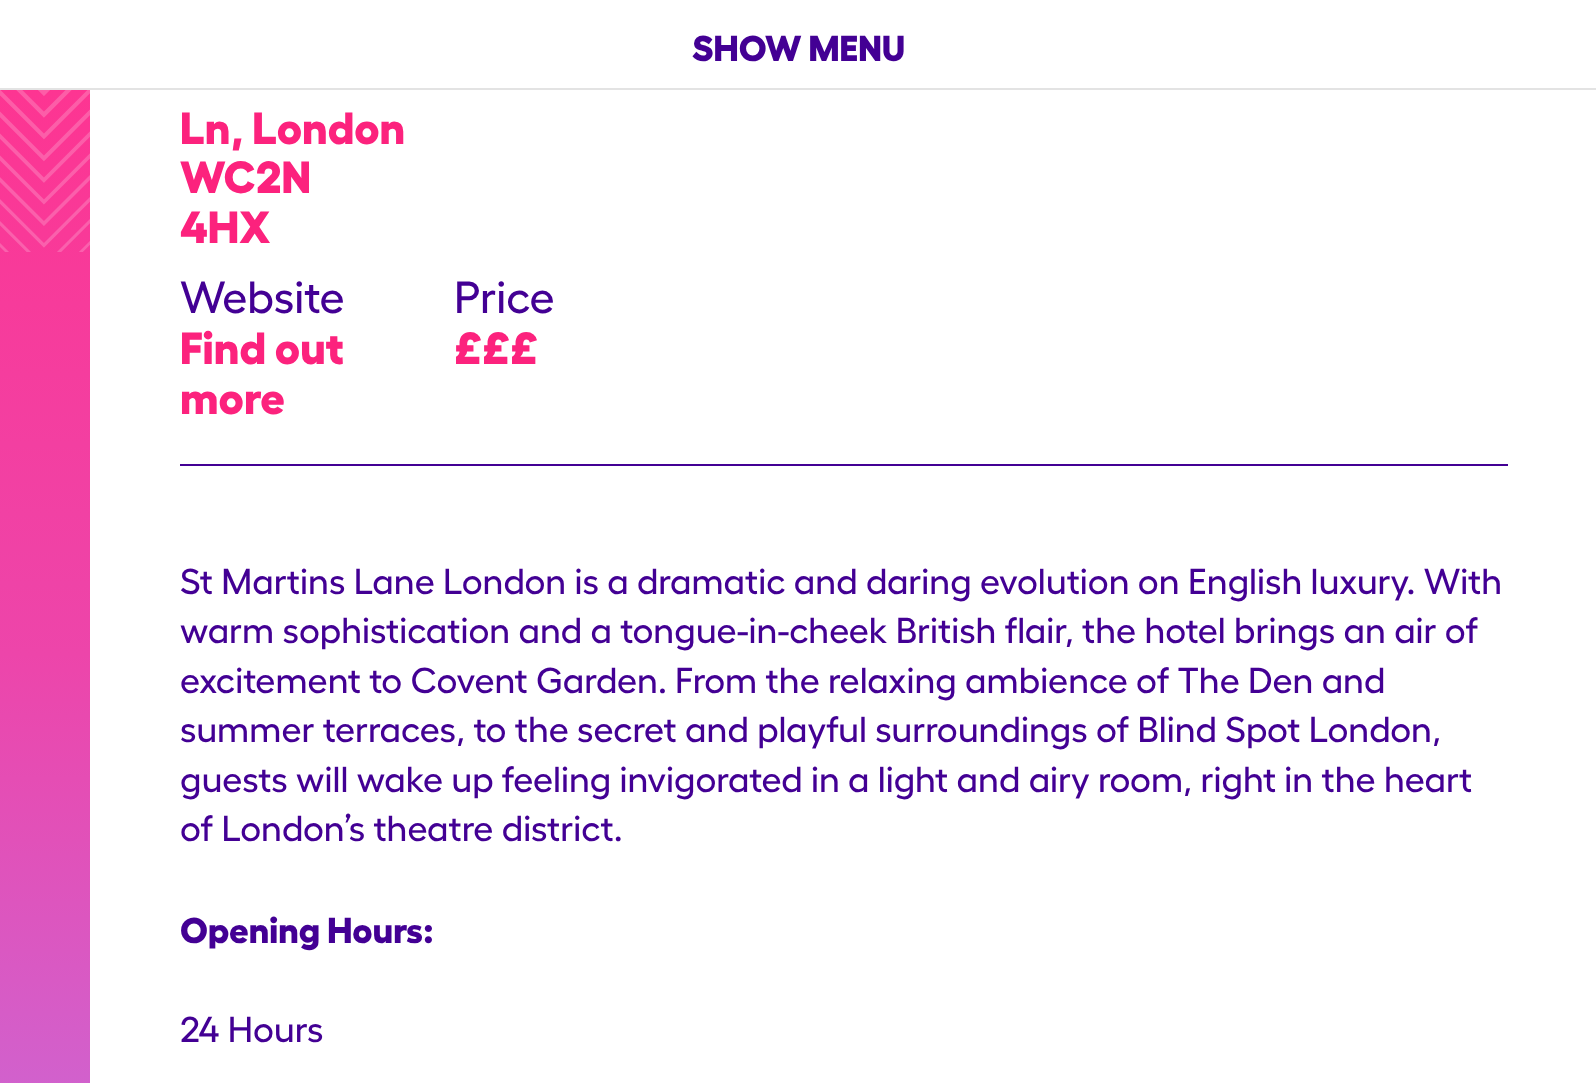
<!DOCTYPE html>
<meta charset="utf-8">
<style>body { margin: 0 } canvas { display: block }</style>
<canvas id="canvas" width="1596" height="1083"></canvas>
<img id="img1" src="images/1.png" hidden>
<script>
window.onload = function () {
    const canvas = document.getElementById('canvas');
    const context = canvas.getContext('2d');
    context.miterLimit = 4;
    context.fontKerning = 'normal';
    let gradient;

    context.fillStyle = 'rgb(255, 255, 255)';
    context.fillRect(0, 0, 1596, 1083);
    gradient = context.createLinearGradient(799, 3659, 799, -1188);
    gradient.addColorStop(0, 'rgb(28, 59, 171)');
    gradient.addColorStop(0.04, 'rgb(0, 79, 189)');
    gradient.addColorStop(0.08, 'rgb(0, 96, 199)');
    gradient.addColorStop(0.12, 'rgb(0, 118, 214)');
    gradient.addColorStop(0.18, 'rgb(0, 138, 224)');
    gradient.addColorStop(0.24, 'rgb(0, 156, 235)');
    gradient.addColorStop(0.3, 'rgb(0, 172, 240)');
    gradient.addColorStop(0.36, 'rgb(71, 161, 250)');
    gradient.addColorStop(0.4, 'rgb(124, 145, 248)');
    gradient.addColorStop(0.45, 'rgb(171, 123, 234)');
    gradient.addColorStop(0.53, 'rgb(209, 97, 205)');
    gradient.addColorStop(0.62, 'rgb(237, 69, 170)');
    gradient.addColorStop(0.75, 'rgb(255, 51, 143)');
    context.fillStyle = gradient;
    context.fillRect(0, 90, 90, 993);
    context.fillStyle = 'rgb(227, 227, 227)';
    context.fillRect(0, 88, 1596, 2);
    context.drawImage(document.getElementById('img1'), 0, 90, 90, 162);
    context.fillStyle = 'rgb(67, 0, 148)';
    context.fillRect(180, 464, 1328, 2);
    context.font = '800 36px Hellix';
    context.fillText('SHOW MENU', 692, 61);
    context.font = '800 45px Hellix';
    context.fillStyle = 'rgb(252, 34, 125)';
    context.fillText('Ln, London', 180, 144);
    context.fillText('WC2N', 180, 193);
    context.fillText('4HX', 180, 243);
    context.font = '500 45px Hellix';
    context.fillStyle = 'rgb(67, 0, 148)';
    context.fillText('Website', 180, 313);
    context.font = '800 45px Hellix';
    context.fillStyle = 'rgb(252, 34, 125)';
    context.fillText('Find out', 180, 364);
    context.fillText('more', 180, 414);
    context.font = '500 45px Hellix';
    context.fillStyle = 'rgb(67, 0, 148)';
    context.fillText('Price', 454, 313);
    context.font = '800 45px Hellix';
    context.fillStyle = 'rgb(252, 34, 125)';
    context.fillText('£££', 454, 364);
    context.font = '500 36px Hellix';
    context.fillStyle = 'rgb(67, 0, 148)';
    context.fillText('St Martins Lane London is a dramatic and daring evolution on English luxury. With', 180, 594);
    context.fillText('warm sophistication and a tongue-in-cheek British flair, the hotel brings an air of', 180, 643);
    context.fillText('excitement to Covent Garden. From the relaxing ambience of The Den and', 180, 693);
    context.fillText('summer terraces, to the secret and playful surroundings of Blind Spot London,', 180, 742);
    context.fillText('guests will wake up feeling invigorated in a light and airy room, right in the heart', 180, 792);
    context.fillText('of London’s theatre district.', 180, 841);
    context.font = '800 36px Hellix';
    context.fillText('Opening Hours:', 180, 943);
    context.font = '500 36px Hellix';
    context.fillText('24 Hours', 180, 1042);
};
</script>
